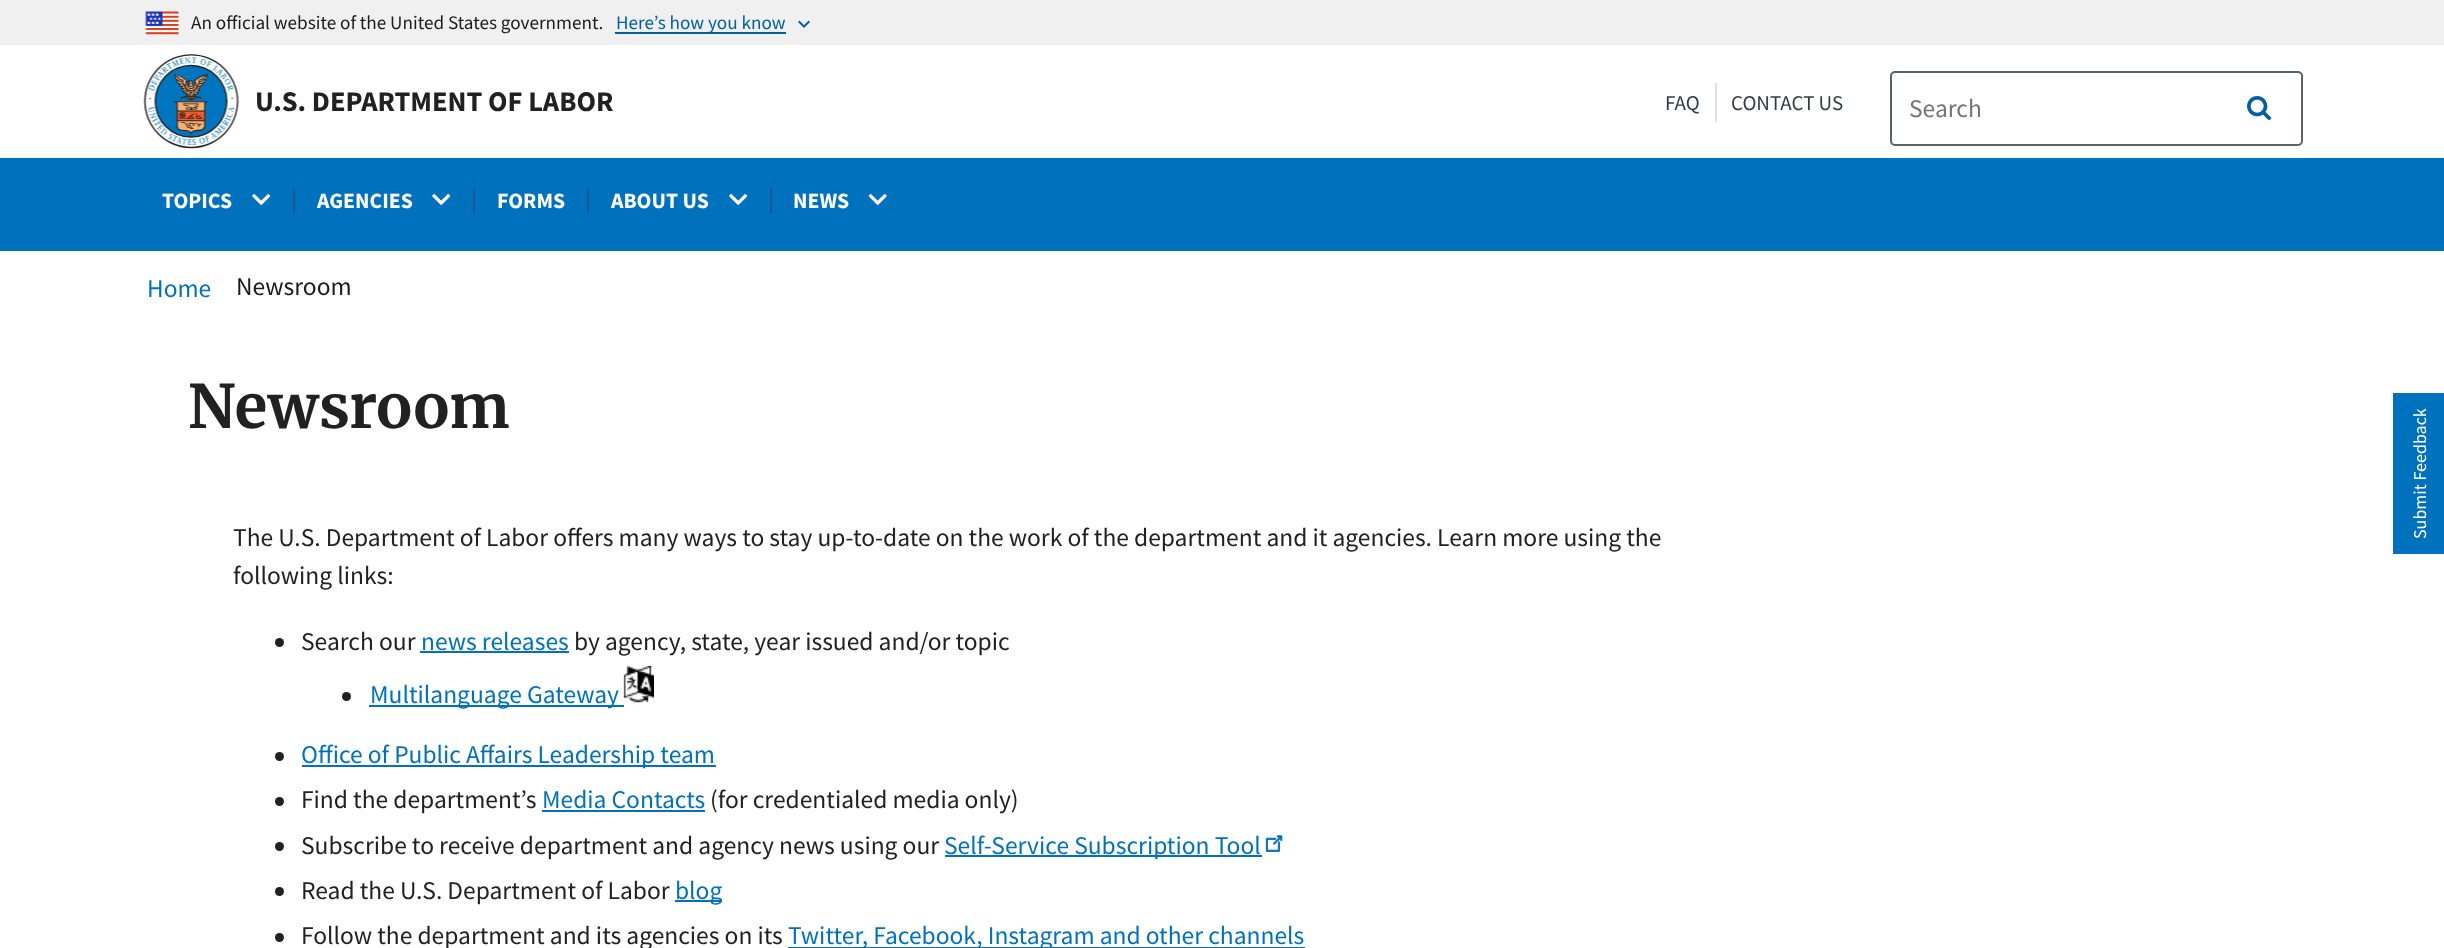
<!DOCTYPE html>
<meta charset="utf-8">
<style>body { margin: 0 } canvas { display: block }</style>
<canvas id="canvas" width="2444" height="948"></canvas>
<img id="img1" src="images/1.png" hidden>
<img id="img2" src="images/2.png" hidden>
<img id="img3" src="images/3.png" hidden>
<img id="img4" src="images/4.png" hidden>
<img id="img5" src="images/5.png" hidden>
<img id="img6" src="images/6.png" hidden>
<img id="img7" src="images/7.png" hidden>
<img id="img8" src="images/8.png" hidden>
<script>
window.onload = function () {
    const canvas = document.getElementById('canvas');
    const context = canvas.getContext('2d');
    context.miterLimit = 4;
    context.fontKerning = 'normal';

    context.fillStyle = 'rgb(255, 255, 255)';
    context.fillRect(0, 0, 2444, 948);
    context.fillStyle = 'rgb(0, 113, 188)';
    context.fillRect(0, 158, 2444, 93);
    context.fillStyle = 'rgb(240, 240, 240)';
    context.fillRect(0, 0, 2444, 45);
    context.drawImage(document.getElementById('img1'), 145, 11, 34, 24);
    context.fillStyle = 'rgb(0, 94, 162)';
    context.fillRect(615, 32, 171, 2);
    context.drawImage(document.getElementById('img2'), 798, 20, 12, 8);
    context.drawImage(document.getElementById('img3'), 143, 54, 96, 95);
    context.fillStyle = 'rgb(223, 225, 226)';
    context.fillRect(1715, 83, 2, 39);
    context.beginPath();
    context.roundRect(1891, 72, 411, 73, 4);
    context.strokeStyle = 'rgb(91, 97, 107)';
    context.lineWidth = 2;
    context.stroke();
    context.drawImage(document.getElementById('img4'), 2247, 96, 24, 24);
    context.drawImage(document.getElementById('img5'), 252, 194, 19, 11);
    context.fillStyle = 'rgb(32, 84, 147)';
    context.fillRect(293, 188, 2, 25);
    context.drawImage(document.getElementById('img5'), 432, 194, 19, 11);
    context.fillRect(473, 188, 2, 25);
    context.fillRect(587, 188, 2, 25);
    context.drawImage(document.getElementById('img5'), 729, 194, 19, 11);
    context.fillRect(770, 188, 2, 25);
    context.drawImage(document.getElementById('img6'), 868, 194, 19, 11);
    context.fillStyle = 'rgb(33, 33, 33)';
    context.beginPath();
    context.arc(279.5, 642.5, 4.5, 0, 2 * Math.PI);
    context.fill();
    context.fillStyle = 'rgb(0, 113, 188)';
    context.fillRect(420, 651, 149, 2);
    context.fillStyle = 'rgb(33, 33, 33)';
    context.beginPath();
    context.arc(346.5, 696.5, 4.5, 0, 2 * Math.PI);
    context.fill();
    context.fillStyle = 'rgb(0, 113, 188)';
    context.fillRect(369, 705, 255, 2);
    context.drawImage(document.getElementById('img7'), 623, 666, 31, 37);
    context.fillStyle = 'rgb(33, 33, 33)';
    context.beginPath();
    context.arc(279.5, 756.5, 4.5, 0, 2 * Math.PI);
    context.fill();
    context.fillStyle = 'rgb(0, 113, 188)';
    context.fillRect(302, 765, 414, 2);
    context.fillStyle = 'rgb(33, 33, 33)';
    context.beginPath();
    context.arc(279.5, 801.5, 4.5, 0, 2 * Math.PI);
    context.fill();
    context.fillStyle = 'rgb(0, 113, 188)';
    context.fillRect(542, 810, 163, 2);
    context.fillStyle = 'rgb(33, 33, 33)';
    context.beginPath();
    context.arc(279.5, 846.5, 4.5, 0, 2 * Math.PI);
    context.fill();
    context.fillStyle = 'rgb(0, 113, 188)';
    context.fillRect(945, 855, 317, 2);
    context.drawImage(document.getElementById('img8'), 1265, 835, 18, 17);
    context.fillStyle = 'rgb(33, 33, 33)';
    context.beginPath();
    context.arc(279.5, 891.5, 4.5, 0, 2 * Math.PI);
    context.fill();
    context.fillStyle = 'rgb(0, 113, 188)';
    context.fillRect(675, 900, 47, 2);
    context.fillStyle = 'rgb(33, 33, 33)';
    context.beginPath();
    context.arc(279.5, 937.5, 4.5, 0, 2 * Math.PI);
    context.fill();
    context.fillStyle = 'rgb(0, 113, 188)';
    context.fillRect(788, 947, 517, 1);
    context.fillRect(2393, 393, 51, 161);
    context.font = '19.2px "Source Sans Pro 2"';
    context.fillStyle = 'rgb(27, 27, 27)';
    context.fillText('An official website of the United States government.', 191, 29);
    context.font = '19.2px Source Sans Pro';
    context.fillStyle = 'rgb(0, 94, 162)';
    context.fillText('Here’s how you know', 616, 29);
    context.font = 'bold 28.5px Source Sans Pro';
    context.fillStyle = 'rgb(33, 33, 33)';
    context.fillText('U.S. DEPARTMENT OF LABOR', 255, 111);
    context.font = '21px Source Sans Pro';
    context.fillStyle = 'rgb(50, 58, 69)';
    context.fillText('FAQ', 1665, 110);
    context.fillText('CONTACT US', 1731, 110);
    context.font = '25.5px "Source Sans Pro 2"';
    context.fillStyle = 'rgb(117, 117, 117)';
    context.fillText('Search', 1909, 117);
    context.font = 'bold 21.75px Source Sans Pro';
    context.fillStyle = 'rgb(255, 255, 255)';
    context.fillText('TOPICS', 162, 208);
    context.fillText('AGENCIES', 317, 208);
    context.fillText('FORMS', 497, 208);
    context.fillText('ABOUT US', 611, 208);
    context.fillText('NEWS', 793, 208);
    context.font = '25.5px Source Sans Pro';
    context.fillStyle = 'rgb(0, 113, 188)';
    context.fillText('Home', 147, 297);
    context.fillStyle = 'rgb(27, 27, 27)';
    context.fillText('Newsroom', 236, 295);
    context.font = 'bold 60px Merriweather';
    context.fillStyle = 'rgb(33, 33, 33)';
    context.fillText('Newsroom', 188, 428);
    context.font = '25.5px "Source Sans Pro 2"';
    context.fillText('The U.S. Department of Labor offers many ways to stay up-to-date on the work of the department and it agencies. Learn more using the', 233, 546);
    context.fillText('following links:', 233, 584);
    context.fillText('Search our', 301, 650);
    context.fillStyle = 'rgb(0, 113, 188)';
    context.fillText('news releases', 421, 650);
    context.fillStyle = 'rgb(33, 33, 33)';
    context.fillText('by agency, state, year issued and/or topic', 574, 650);
    context.fillStyle = 'rgb(0, 113, 188)';
    context.fillText('Multilanguage Gateway', 370, 703);
    context.fillText('Office of Public Affairs Leadership team', 301, 763);
    context.fillStyle = 'rgb(33, 33, 33)';
    context.fillText('Find the department’s', 301, 808);
    context.fillStyle = 'rgb(0, 113, 188)';
    context.fillText('Media Contacts', 542, 808);
    context.fillStyle = 'rgb(33, 33, 33)';
    context.fillText('(for credentialed media only)', 710, 808);
    context.fillText('Subscribe to receive department and agency news using our', 301, 854);
    context.fillStyle = 'rgb(0, 113, 188)';
    context.fillText('Self-Service Subscription Tool', 944, 854);
    context.fillStyle = 'rgb(33, 33, 33)';
    context.fillText('Read the U.S. Department of Labor', 301, 899);
    context.fillStyle = 'rgb(0, 113, 188)';
    context.fillText('blog', 675, 899);
    context.fillStyle = 'rgb(33, 33, 33)';
    context.fillText('Follow the department and its agencies on its', 301, 944);
    context.fillStyle = 'rgb(0, 113, 188)';
    context.fillText('Twitter, Facebook, Instagram and other channels', 788, 944);
    context.font = '18px Source Sans Pro';
    context.fillStyle = 'rgb(255, 255, 255)';
    context.save();
    context.translate(2426, 539);
    context.rotate(-90 * Math.PI / 180);
    context.fillText('Submit Feedback', 0, 0);
    context.restore();
};
</script>
